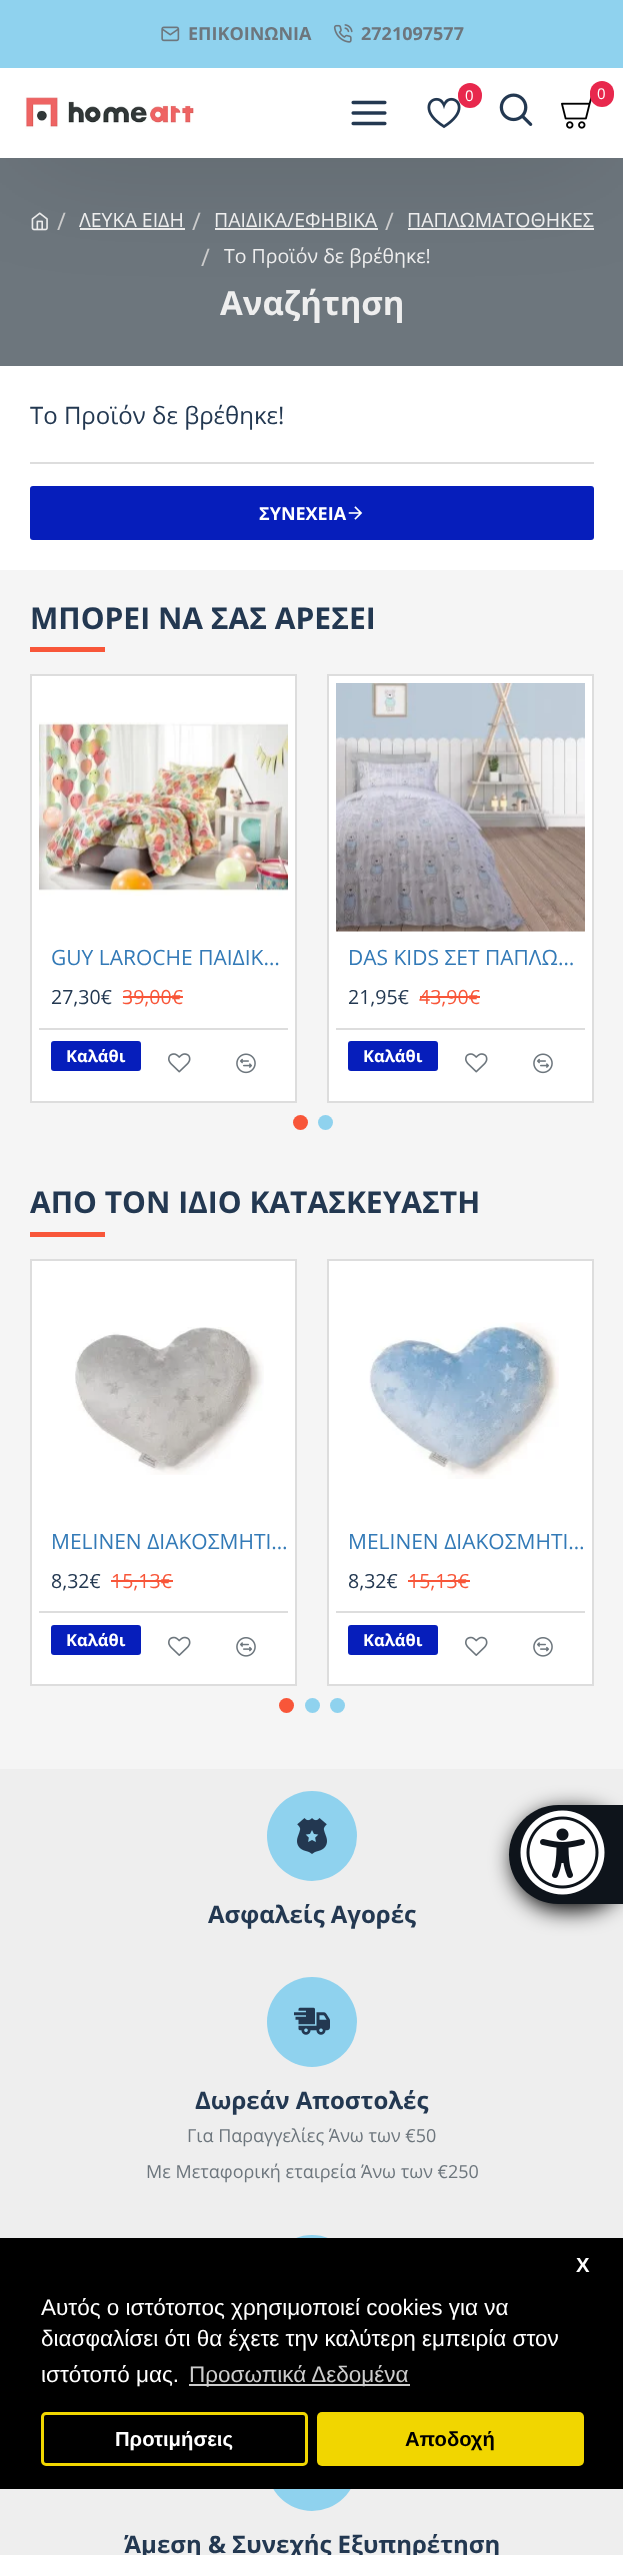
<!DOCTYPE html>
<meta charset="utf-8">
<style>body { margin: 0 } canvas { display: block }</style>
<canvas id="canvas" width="623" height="2555"></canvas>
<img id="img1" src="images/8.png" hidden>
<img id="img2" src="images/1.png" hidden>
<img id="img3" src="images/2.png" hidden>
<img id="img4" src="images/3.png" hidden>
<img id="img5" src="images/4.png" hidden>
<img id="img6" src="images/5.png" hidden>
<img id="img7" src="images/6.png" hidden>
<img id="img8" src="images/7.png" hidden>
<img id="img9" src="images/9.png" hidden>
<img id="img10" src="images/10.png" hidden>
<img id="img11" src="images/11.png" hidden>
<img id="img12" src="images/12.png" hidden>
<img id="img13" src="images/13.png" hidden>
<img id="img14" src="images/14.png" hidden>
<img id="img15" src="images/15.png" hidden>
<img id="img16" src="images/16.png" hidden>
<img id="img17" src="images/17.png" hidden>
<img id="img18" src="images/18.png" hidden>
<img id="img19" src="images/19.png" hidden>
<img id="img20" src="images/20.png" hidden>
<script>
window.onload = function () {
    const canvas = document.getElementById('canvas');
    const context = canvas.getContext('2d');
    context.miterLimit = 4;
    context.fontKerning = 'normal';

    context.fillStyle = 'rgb(255, 255, 255)';
    context.fillRect(0, 0, 623, 2555);
    context.fillStyle = 'rgb(109, 118, 125)';
    context.fillRect(0, 158, 623, 208);
    context.drawImage(document.getElementById('img1'), 31, 212, 17, 19);
    context.fillStyle = 'rgb(238, 238, 238)';
    context.fillRect(80, 228, 105, 2);
    context.fillRect(215, 228, 163, 2);
    context.fillRect(408, 228, 186, 2);
    context.fillStyle = 'rgba(0, 0, 0, 0.2)';
    context.filter = 'blur(64px)';
    context.beginPath();
    context.rect(15, 83, 594, 60);
    context.fill();
    context.filter = 'none';
    context.fillStyle = 'rgb(143, 210, 238)';
    context.fillRect(0, 0, 623, 68);
    context.drawImage(document.getElementById('img2'), 161, 26, 19, 16);
    context.drawImage(document.getElementById('img3'), 333, 24, 20, 19);
    context.fillStyle = 'rgb(255, 255, 255)';
    context.fillRect(0, 68, 623, 90);
    context.drawImage(document.getElementById('img4'), 351, 100, 36, 26);
    context.drawImage(document.getElementById('img5'), 427, 97, 34, 32);
    context.fillStyle = 'rgb(232, 40, 77)';
    context.beginPath();
    context.roundRect(458, 83, 24, 25, 12);
    context.fill();
    context.drawImage(document.getElementById('img6'), 499, 93, 34, 33);
    context.drawImage(document.getElementById('img7'), 561, 96, 31, 33);
    context.beginPath();
    context.roundRect(590, 81, 24, 26, 12);
    context.fill();
    context.drawImage(document.getElementById('img8'), 25, 97, 169, 32);
    context.fillStyle = 'rgb(221, 221, 221)';
    context.fillRect(30, 462, 564, 2);
    context.fillStyle = 'rgb(6, 30, 187)';
    context.beginPath();
    context.roundRect(30, 486, 564, 54, 3);
    context.fill();
    context.drawImage(document.getElementById('img9'), 348, 506, 15, 14);
    context.fillStyle = 'rgb(245, 245, 245)';
    context.fillRect(0, 570, 623, 1199);
    context.fillStyle = 'rgb(248, 86, 57)';
    context.fillRect(30, 647, 75, 5);
    context.fillStyle = 'rgb(255, 255, 255)';
    context.beginPath();
    context.rect(31, 675, 265, 427);
    context.fill();
    context.strokeStyle = 'rgb(221, 221, 221)';
    context.lineWidth = 2;
    context.stroke();
    context.drawImage(document.getElementById('img10'), 39, 722, 249, 174);
    context.fillStyle = 'rgb(248, 86, 57)';
    context.fillRect(123, 996, 60, 2);
    context.fillStyle = 'rgb(221, 221, 221)';
    context.fillRect(39, 1028, 249, 2);
    context.fillStyle = 'rgb(6, 30, 187)';
    context.beginPath();
    context.roundRect(51, 1041, 90, 30, 3);
    context.fill();
    context.drawImage(document.getElementById('img11'), 168, 1053, 23, 20);
    context.drawImage(document.getElementById('img12'), 236, 1053, 20, 21);
    context.fillStyle = 'rgb(255, 255, 255)';
    context.beginPath();
    context.rect(328, 675, 265, 427);
    context.fill();
    context.stroke();
    context.drawImage(document.getElementById('img13'), 336, 683, 249, 249);
    context.fillStyle = 'rgb(248, 86, 57)';
    context.fillRect(420, 996, 60, 2);
    context.fillStyle = 'rgb(221, 221, 221)';
    context.fillRect(336, 1028, 249, 2);
    context.fillStyle = 'rgb(6, 30, 187)';
    context.beginPath();
    context.roundRect(348, 1041, 90, 30, 3);
    context.fill();
    context.drawImage(document.getElementById('img11'), 465, 1053, 23, 20);
    context.drawImage(document.getElementById('img12'), 533, 1053, 20, 21);
    context.fillStyle = 'rgb(248, 86, 57)';
    context.beginPath();
    context.arc(300.5, 1122.5, 7.5, 0, 2 * Math.PI);
    context.fill();
    context.fillStyle = 'rgb(143, 210, 238)';
    context.beginPath();
    context.arc(325.5, 1122.5, 7.5, 0, 2 * Math.PI);
    context.fill();
    context.fillStyle = 'rgb(248, 86, 57)';
    context.fillRect(30, 1232, 75, 5);
    context.fillStyle = 'rgb(255, 255, 255)';
    context.beginPath();
    context.rect(31, 1260, 265, 425);
    context.fill();
    context.stroke();
    context.drawImage(document.getElementById('img14'), 75, 1327, 189, 148);
    context.fillStyle = 'rgb(248, 86, 57)';
    context.fillRect(111, 1580, 62, 2);
    context.fillStyle = 'rgb(221, 221, 221)';
    context.fillRect(39, 1611, 249, 2);
    context.fillStyle = 'rgb(6, 30, 187)';
    context.beginPath();
    context.roundRect(51, 1625, 90, 30, 3);
    context.fill();
    context.drawImage(document.getElementById('img15'), 168, 1636, 23, 20);
    context.drawImage(document.getElementById('img16'), 236, 1637, 20, 20);
    context.fillStyle = 'rgb(255, 255, 255)';
    context.beginPath();
    context.rect(328, 1260, 265, 425);
    context.fill();
    context.stroke();
    context.drawImage(document.getElementById('img17'), 369, 1322, 190, 157);
    context.fillStyle = 'rgb(248, 86, 57)';
    context.fillRect(408, 1580, 62, 2);
    context.fillStyle = 'rgb(221, 221, 221)';
    context.fillRect(336, 1611, 249, 2);
    context.fillStyle = 'rgb(6, 30, 187)';
    context.beginPath();
    context.roundRect(348, 1625, 90, 30, 3);
    context.fill();
    context.drawImage(document.getElementById('img15'), 465, 1636, 23, 20);
    context.drawImage(document.getElementById('img16'), 533, 1637, 20, 20);
    context.fillStyle = 'rgb(248, 86, 57)';
    context.beginPath();
    context.arc(286.5, 1705.5, 7.5, 0, 2 * Math.PI);
    context.fill();
    context.fillStyle = 'rgb(143, 210, 238)';
    context.beginPath();
    context.arc(312.5, 1705.5, 7.5, 0, 2 * Math.PI);
    context.fill();
    context.beginPath();
    context.arc(337.5, 1705.5, 7.5, 0, 2 * Math.PI);
    context.fill();
    context.fillStyle = 'rgb(238, 238, 238)';
    context.fillRect(0, 1769, 623, 786);
    context.fillStyle = 'rgb(143, 210, 238)';
    context.beginPath();
    context.arc(312, 1836, 45, 0, 2 * Math.PI);
    context.fill();
    context.drawImage(document.getElementById('img18'), 297, 1818, 30, 36);
    context.beginPath();
    context.arc(312, 2022, 45, 0, 2 * Math.PI);
    context.fill();
    context.drawImage(document.getElementById('img19'), 294, 2007, 36, 28);
    context.beginPath();
    context.arc(312, 2280, 45, 0, 2 * Math.PI);
    context.fill();
    context.beginPath();
    context.arc(312, 2466, 45, 0, 2 * Math.PI);
    context.fill();
    context.fillStyle = 'rgb(0, 0, 0)';
    context.filter = 'blur(11px)';
    context.beginPath();
    context.roundRect(513, 1811, 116, 99, 49.5);
    context.fill();
    context.filter = 'none';
    context.fillStyle = 'rgb(14, 20, 27)';
    context.beginPath();
    context.moveTo(558.5, 1805);
    context.lineTo(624, 1805);
    context.lineTo(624, 1904);
    context.lineTo(558.5, 1904);
    context.bezierCurveTo(531, 1904, 509, 1882, 509, 1854.5);
    context.bezierCurveTo(509, 1827, 531, 1805, 558.5, 1805);
    context.closePath();
    context.fill();
    context.drawImage(document.getElementById('img20'), 520, 1810, 85, 85);
    context.fillStyle = 'rgb(0, 0, 0)';
    context.fillRect(0, 2238, 623, 251);
    context.beginPath();
    context.roundRect(42.5, 2413.5, 264, 51, 3.5);
    context.strokeStyle = 'rgb(241, 214, 0)';
    context.lineWidth = 3;
    context.stroke();
    context.fillStyle = 'rgb(241, 214, 0)';
    context.beginPath();
    context.roundRect(317, 2412, 267, 54, 5);
    context.fill();
    context.fillStyle = 'rgb(204, 204, 204)';
    context.fillRect(189, 2384, 221, 2);
    context.font = 'bold 18px Open Sans';
    context.fillStyle = 'rgb(109, 118, 125)';
    context.fillText('ΕΠΙΚΟΙΝΩΝΙΑ', 188, 40);
    context.fillText('2721097577', 361, 40);
    context.font = '15px Open Sans';
    context.fillStyle = 'rgb(255, 255, 255)';
    context.fillText('0', 465, 101);
    context.fillText('0', 597, 99);
    context.font = '24px Open Sans';
    context.fillStyle = 'rgb(204, 204, 204)';
    context.fillText('/', 57, 230);
    context.font = '19.5px Open Sans';
    context.fillStyle = 'rgb(238, 238, 238)';
    context.fillText('ΛΕΥΚΑ ΕΙΔΗ', 79, 227);
    context.font = '24px Open Sans';
    context.fillStyle = 'rgb(204, 204, 204)';
    context.fillText('/', 192, 230);
    context.font = '19.5px Open Sans';
    context.fillStyle = 'rgb(238, 238, 238)';
    context.fillText('ΠΑΙΔΙΚΑ/ΕΦΗΒΙΚΑ', 214, 227);
    context.font = '24px Open Sans';
    context.fillStyle = 'rgb(204, 204, 204)';
    context.fillText('/', 385, 230);
    context.font = '19.5px Open Sans';
    context.fillStyle = 'rgb(238, 238, 238)';
    context.fillText('ΠΑΠΛΩΜΑΤΟΘΗΚΕΣ', 407, 227);
    context.font = '24px Open Sans';
    context.fillStyle = 'rgb(204, 204, 204)';
    context.fillText('/', 201, 266);
    context.font = '19.5px Open Sans';
    context.fillStyle = 'rgb(238, 238, 238)';
    context.fillText('Το Προϊόν δε βρέθηκε!', 224, 263);
    context.font = 'bold 33px Open Sans';
    context.fillText('Αναζήτηση', 220, 315);
    context.font = '24px Open Sans';
    context.fillStyle = 'rgb(35, 56, 81)';
    context.fillText('Το Προϊόν δε βρέθηκε!', 30, 424);
    context.font = 'bold 18px Open Sans';
    context.fillStyle = 'rgb(255, 255, 255)';
    context.fillText('ΣΥΝΕΧΕΙΑ', 259, 520);
    context.font = 'bold 30px Open Sans';
    context.fillStyle = 'rgb(35, 56, 81)';
    context.fillText('ΜΠΟΡΕΙ ΝΑ ΣΑΣ ΑΡΕΣΕΙ', 30, 629);
    context.font = '21px Open Sans';
    context.fillStyle = 'rgb(51, 122, 183)';
    context.fillText('GUY LAROCHE ΠΑΙΔΙΚ…', 51, 965);
    context.font = '19.5px Open Sans';
    context.fillStyle = 'rgb(35, 56, 81)';
    context.fillText('27,30€', 51, 1004);
    context.fillStyle = 'rgb(248, 86, 57)';
    context.fillText('39,00€', 122, 1004);
    context.font = 'bold 16.5px Open Sans';
    context.fillStyle = 'rgb(255, 255, 255)';
    context.fillText('Καλάθι', 66, 1062);
    context.font = '21px Open Sans';
    context.fillStyle = 'rgb(51, 122, 183)';
    context.fillText('DAS KIDS ΣΕΤ ΠΑΠΛΩ…', 348, 965);
    context.font = '19.5px Open Sans';
    context.fillStyle = 'rgb(35, 56, 81)';
    context.fillText('21,95€', 348, 1004);
    context.fillStyle = 'rgb(248, 86, 57)';
    context.fillText('43,90€', 419, 1004);
    context.font = 'bold 16.5px Open Sans';
    context.fillStyle = 'rgb(255, 255, 255)';
    context.fillText('Καλάθι', 363, 1062);
    context.font = 'bold 30px Open Sans';
    context.fillStyle = 'rgb(35, 56, 81)';
    context.fillText('ΑΠΟ ΤΟΝ ΙΔΙΟ ΚΑΤΑΣΚΕΥΑΣΤΗ', 30, 1213);
    context.font = '21px Open Sans';
    context.fillStyle = 'rgb(51, 122, 183)';
    context.fillText('MELINEN ΔΙΑΚΟΣΜΗΤI…', 51, 1549);
    context.font = '19.5px Open Sans';
    context.fillStyle = 'rgb(35, 56, 81)';
    context.fillText('8,32€', 51, 1588);
    context.fillStyle = 'rgb(248, 86, 57)';
    context.fillText('15,13€', 111, 1588);
    context.font = 'bold 16.5px Open Sans';
    context.fillStyle = 'rgb(255, 255, 255)';
    context.fillText('Καλάθι', 66, 1646);
    context.font = '21px Open Sans';
    context.fillStyle = 'rgb(51, 122, 183)';
    context.fillText('MELINEN ΔΙΑΚΟΣΜΗΤI…', 348, 1549);
    context.font = '19.5px Open Sans';
    context.fillStyle = 'rgb(35, 56, 81)';
    context.fillText('8,32€', 348, 1588);
    context.fillStyle = 'rgb(248, 86, 57)';
    context.fillText('15,13€', 408, 1588);
    context.font = 'bold 16.5px Open Sans';
    context.fillStyle = 'rgb(255, 255, 255)';
    context.fillText('Καλάθι', 363, 1646);
    context.font = 'bold 24px Open Sans';
    context.fillStyle = 'rgb(35, 56, 81)';
    context.fillText('Ασφαλείς Αγορές', 208, 1923);
    context.fillText('Δωρεάν Αποστολές', 195, 2109);
    context.font = '18px Open Sans';
    context.fillStyle = 'rgb(109, 118, 125)';
    context.fillText('Για Παραγγελίες Άνω των €50', 187, 2142);
    context.fillText('Με Μεταφορική εταιρεία Άνω των €250', 146, 2178);
    context.font = 'bold 24px Open Sans';
    context.fillStyle = 'rgb(35, 56, 81)';
    context.fillText('Άμεση & Συνεχής Εξυπηρέτηση', 124, 2553);
    context.font = 'bold 20.25px Liberation Sans';
    context.fillStyle = 'rgb(255, 255, 255)';
    context.fillText('X', 576, 2272);
    context.fillText('Προτιμήσεις', 115, 2446);
    context.fillStyle = 'rgb(0, 0, 0)';
    context.fillText('Aποδοχή', 405, 2446);
    context.font = '22.5px Liberation Sans';
    context.fillStyle = 'rgb(255, 255, 255)';
    context.fillText('Αυτός ο ιστότοπος χρησιμοποιεί cookies για να', 41, 2315);
    context.fillText('διασφαλίσει ότι θα έχετε την καλύτερη εμπειρία στον', 41, 2346);
    context.fillText('ιστότοπό μας.', 41, 2382);
    context.fillStyle = 'rgb(204, 204, 204)';
    context.fillText('Προσωπικά Δεδομένα', 189, 2382);
};
</script>
